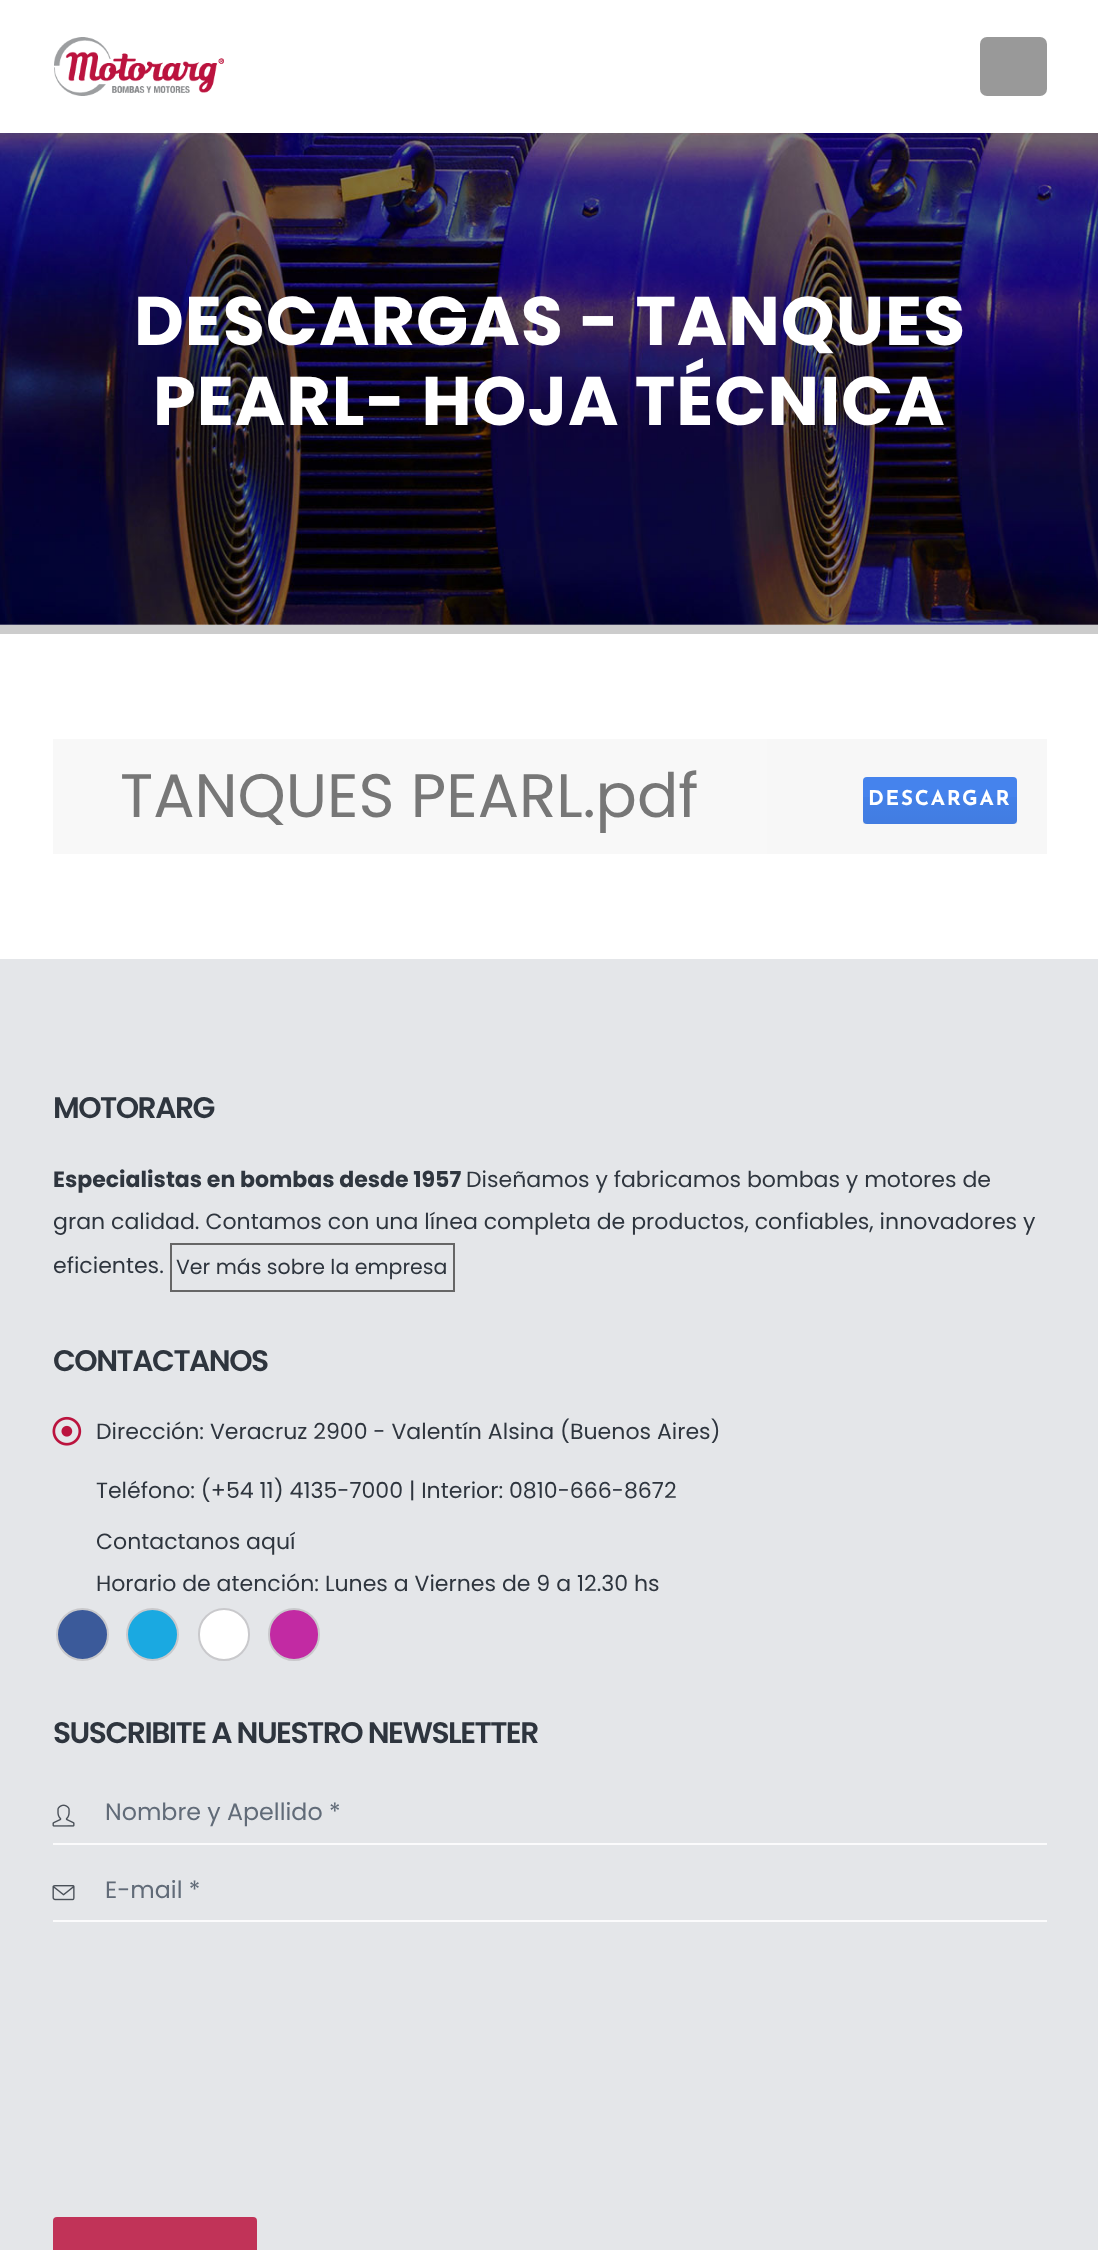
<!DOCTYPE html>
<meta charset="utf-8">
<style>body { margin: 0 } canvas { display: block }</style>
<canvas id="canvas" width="1098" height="2250"></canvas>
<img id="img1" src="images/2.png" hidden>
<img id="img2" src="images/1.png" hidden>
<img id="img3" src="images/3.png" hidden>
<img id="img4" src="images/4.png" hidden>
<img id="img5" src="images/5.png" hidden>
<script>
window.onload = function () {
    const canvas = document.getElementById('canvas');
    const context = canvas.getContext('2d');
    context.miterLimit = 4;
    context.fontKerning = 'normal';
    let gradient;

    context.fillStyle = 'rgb(255, 255, 255)';
    context.fillRect(0, 0, 1098, 2250);
    context.drawImage(document.getElementById('img1'), 0, 133, 1098, 492);
    context.fillStyle = 'rgba(0, 0, 0, 0.06)';
    context.filter = 'blur(2.5px)';
    context.beginPath();
    context.rect(0, 0, 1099, 133);
    context.fill();
    context.filter = 'none';
    context.fillStyle = 'rgb(255, 255, 255)';
    context.fillRect(0, 0, 1098, 133);
    context.drawImage(document.getElementById('img2'), 54, 37, 170, 59);
    context.fillStyle = 'rgb(153, 153, 153)';
    context.beginPath();
    context.roundRect(980, 37, 67, 59, 7);
    context.fill();
    context.fillStyle = 'rgb(204, 204, 204)';
    context.fillRect(0, 625, 1098, 9);
    context.fillStyle = 'rgb(248, 248, 248)';
    context.fillRect(53, 739, 714, 115);
    context.fillStyle = 'rgb(247, 247, 247)';
    context.fillRect(767, 739, 280, 115);
    context.fillStyle = 'rgb(69, 131, 237)';
    context.beginPath();
    context.roundRect(863, 777, 154, 47, 4);
    context.fill();
    gradient = context.createLinearGradient(940, 777, 940, 824);
    gradient.addColorStop(0, 'rgba(0, 0, 0, 0)');
    gradient.addColorStop(1, 'rgba(0, 0, 0, 0.05)');
    context.fillStyle = gradient;
    context.fillRect(863, 797, 154, 27);
    context.fillStyle = 'rgb(228, 230, 233)';
    context.fillRect(0, 959, 1098, 1291);
    context.strokeStyle = 'rgb(102, 102, 102)';
    context.lineWidth = 2;
    context.strokeRect(171, 1244, 283, 47);
    context.drawImage(document.getElementById('img3'), 52, 1416, 30, 30);
    context.fillStyle = 'rgb(59, 90, 154)';
    context.beginPath();
    context.arc(82.5, 1634.5, 25.5, 0, 2 * Math.PI);
    context.fill();
    context.strokeStyle = 'rgb(201, 201, 204)';
    context.stroke();
    context.fillStyle = 'rgb(26, 169, 225)';
    context.beginPath();
    context.arc(152.5, 1634.5, 25.5, 0, 2 * Math.PI);
    context.fill();
    context.stroke();
    context.fillStyle = 'rgb(255, 255, 255)';
    context.beginPath();
    context.roundRect(199, 1609, 50, 51, 25);
    context.fill();
    context.stroke();
    context.fillStyle = 'rgb(194, 42, 163)';
    context.beginPath();
    context.roundRect(269, 1609, 50, 51, 25);
    context.fill();
    context.stroke();
    context.drawImage(document.getElementById('img4'), 52, 1804, 23, 23);
    context.fillStyle = 'rgb(251, 251, 252)';
    context.fillRect(53, 1843, 994, 2);
    context.drawImage(document.getElementById('img5'), 52, 1885, 23, 16);
    context.fillRect(53, 1920, 994, 2);
    context.fillStyle = 'rgb(193, 51, 88)';
    context.beginPath();
    context.roundRect(53, 2217, 204, 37, 4);
    context.fill();
    context.letterSpacing = '0.9px';
    context.font = 'bold 68.6px Poppins';
    context.fillStyle = 'rgb(255, 255, 255)';
    context.fillText('DESCARGAS - TANQUES', 134, 345);
    context.fillText('PEARL- HOJA TÉCNICA', 153, 425);
    context.letterSpacing = '0px';
    context.font = '61.25px Poppins';
    context.fillStyle = 'rgb(119, 119, 119)';
    context.fillText('TANQUES PEARL.pdf', 120, 817);
    context.letterSpacing = '1.75px';
    context.font = 'bold 20.5px Josefin Sans';
    context.fillStyle = 'rgb(255, 255, 255)';
    context.fillText('DESCARGAR', 868, 805);
    context.letterSpacing = '-1.5px';
    context.font = '600 29.75px Poppins';
    context.fillStyle = 'rgb(46, 53, 62)';
    context.fillText('MOTORARG', 53, 1118);
    context.letterSpacing = '0px';
    context.font = 'bold 22.05px Poppins';
    context.fillText('Especialistas en bombas desde 1957', 53, 1187);
    context.font = '22.05px Poppins';
    context.fillText('Diseñamos y fabricamos bombas y motores de', 466, 1187);
    context.fillText('gran calidad. Contamos con una línea completa de productos, confiables, innovadores y', 53, 1229);
    context.fillText('eficientes.', 53, 1273);
    context.font = '20.5px Poppins';
    context.fillText('Ver más sobre la empresa', 176, 1274);
    context.letterSpacing = '-1.5px';
    context.font = '600 29.75px Poppins';
    context.fillText('CONTACTANOS', 53, 1371);
    context.letterSpacing = '0px';
    context.font = '22.05px Poppins';
    context.fillText('Dirección: Veracruz 2900 - Valentín Alsina (Buenos Aires)', 96, 1439);
    context.fillText('Teléfono: (+54 11) 4135-7000 | Interior: 0810-666-8672', 96, 1498);
    context.fillText('Contactanos aquí', 96, 1549);
    context.fillText('Horario de atención: Lunes a Viernes de 9 a 12.30 hs', 96, 1591);
    context.letterSpacing = '-1.5px';
    context.font = '600 29.75px Poppins';
    context.fillText('SUSCRIBITE A NUESTRO NEWSLETTER', 53, 1743);
    context.letterSpacing = '0px';
    context.font = '23.75px Poppins';
    context.fillStyle = 'rgb(97, 107, 120)';
    context.fillText('Nombre y Apellido *', 105, 1820);
    context.fillText('E-mail *', 105, 1898);
};
</script>
